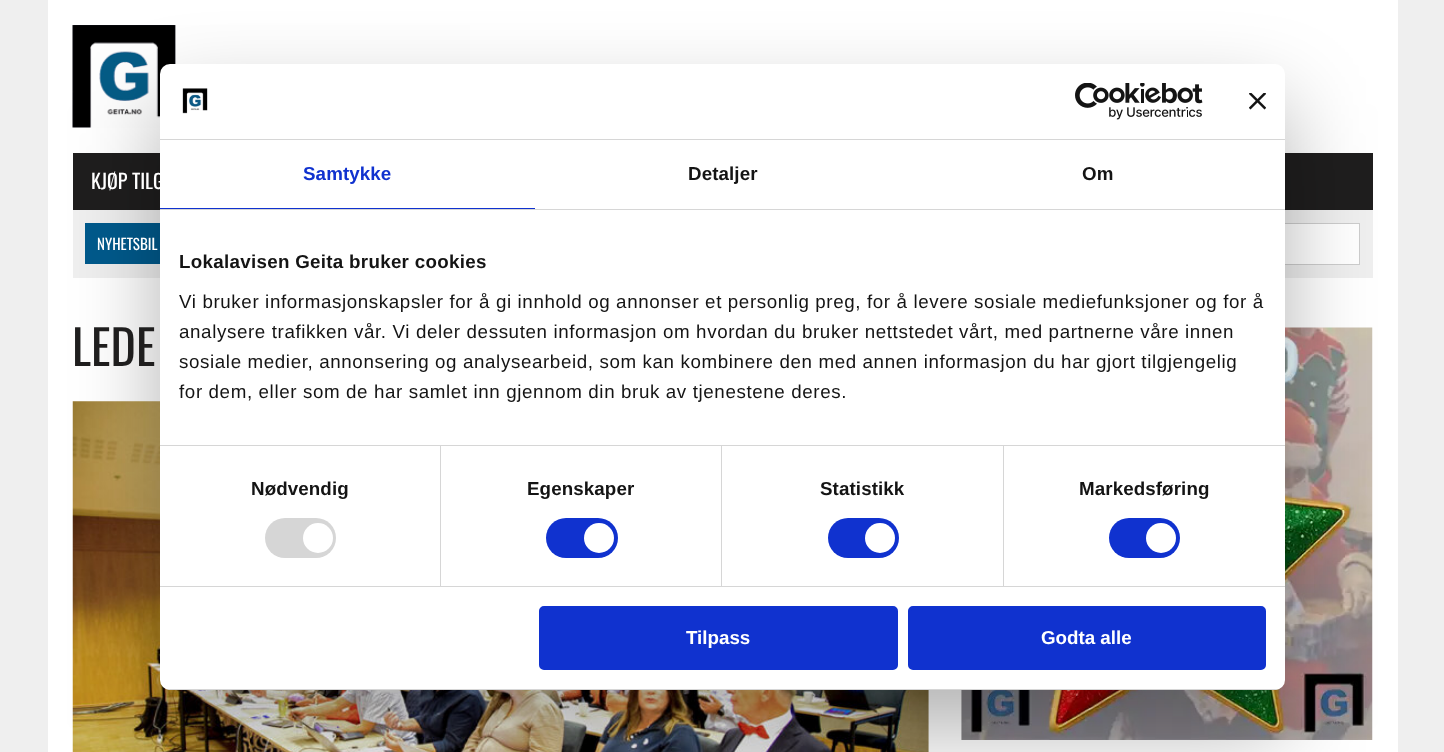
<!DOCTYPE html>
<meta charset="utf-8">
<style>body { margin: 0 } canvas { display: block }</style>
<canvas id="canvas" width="1444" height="752"></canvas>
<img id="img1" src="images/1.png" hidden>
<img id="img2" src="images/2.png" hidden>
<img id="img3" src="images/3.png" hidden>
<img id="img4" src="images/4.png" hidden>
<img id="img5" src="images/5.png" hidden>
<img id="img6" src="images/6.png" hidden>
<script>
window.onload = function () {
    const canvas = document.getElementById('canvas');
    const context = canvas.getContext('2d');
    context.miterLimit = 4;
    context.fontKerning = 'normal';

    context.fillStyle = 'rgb(239, 239, 239)';
    context.fillRect(0, 0, 1444, 752);
    context.fillStyle = 'rgb(255, 255, 255)';
    context.fillRect(48, 0, 1350, 752);
    context.drawImage(document.getElementById('img1'), 72, 25, 398, 103);
    context.fillStyle = 'rgb(31, 30, 30)';
    context.fillRect(73, 153, 1300, 57);
    context.fillStyle = 'rgb(239, 239, 239)';
    context.fillRect(73, 210, 1300, 68);
    context.fillStyle = 'rgb(0, 90, 140)';
    context.fillRect(85, 223, 75, 41);
    context.fillStyle = 'rgb(255, 255, 255)';
    context.fillRect(1285, 224, 74, 40);
    context.strokeStyle = 'rgb(205, 205, 205)';
    context.strokeRect(1110.5, 223.5, 249, 41);
    context.drawImage(document.getElementById('img2'), 72, 401, 857, 351);
    context.drawImage(document.getElementById('img3'), 961, 327, 412, 413);
    context.fillStyle = 'rgba(0, 0, 0, 0.3)';
    context.filter = 'blur(42.5px)';
    context.beginPath();
    context.roundRect(160, 104, 1125, 626, 10);
    context.fill();
    context.filter = 'none';
    context.fillStyle = 'rgb(255, 255, 255)';
    context.beginPath();
    context.roundRect(160, 64, 1125, 626, 10);
    context.fill();
    context.fillStyle = 'rgb(214, 214, 214)';
    context.fillRect(160, 139, 1125, 1);
    context.drawImage(document.getElementById('img4'), 182, 88, 26, 26);
    context.drawImage(document.getElementById('img5'), 1075, 83, 128, 37);
    context.drawImage(document.getElementById('img6'), 1249, 93, 17, 17);
    context.fillRect(160, 209, 1125, 1);
    context.fillStyle = 'rgb(16, 50, 207)';
    context.fillRect(160, 208, 375, 1);
    context.fillStyle = 'rgb(214, 214, 214)';
    context.fillRect(160, 445, 1125, 1);
    context.fillRect(160, 586, 1125, 1);
    context.fillRect(440, 446, 1, 140);
    context.beginPath();
    context.roundRect(265, 518, 71, 40, 20);
    context.fill();
    context.fillStyle = 'rgb(255, 255, 255)';
    context.beginPath();
    context.arc(318, 538, 15, 0, 2 * Math.PI);
    context.fill();
    context.fillStyle = 'rgb(214, 214, 214)';
    context.fillRect(721, 446, 1, 140);
    context.fillStyle = 'rgb(16, 50, 207)';
    context.beginPath();
    context.roundRect(546, 518, 72, 40, 20);
    context.fill();
    context.fillStyle = 'rgb(255, 255, 255)';
    context.beginPath();
    context.arc(599, 538, 15, 0, 2 * Math.PI);
    context.fill();
    context.fillStyle = 'rgb(214, 214, 214)';
    context.fillRect(1003, 446, 1, 140);
    context.fillStyle = 'rgb(16, 50, 207)';
    context.beginPath();
    context.roundRect(828, 518, 71, 40, 20);
    context.fill();
    context.fillStyle = 'rgb(255, 255, 255)';
    context.beginPath();
    context.arc(880, 538, 15, 0, 2 * Math.PI);
    context.fill();
    context.fillStyle = 'rgb(16, 50, 207)';
    context.beginPath();
    context.roundRect(1109, 518, 71, 40, 20);
    context.fill();
    context.fillStyle = 'rgb(255, 255, 255)';
    context.beginPath();
    context.arc(1161, 538, 15, 0, 2 * Math.PI);
    context.fill();
    context.save();
    context.beginPath();
    context.roundRect(160, 64, 1125, 626, 10);
    context.clip();
    context.fillStyle = 'rgb(214, 214, 214)';
    context.fillRect(160, 689, 1125, 1);
    context.restore();
    context.fillStyle = 'rgb(16, 50, 207)';
    context.beginPath();
    context.roundRect(540.5, 607.5, 356, 61, 3.5);
    context.fill();
    context.strokeStyle = 'rgb(16, 50, 207)';
    context.lineWidth = 3;
    context.stroke();
    context.beginPath();
    context.roundRect(909.5, 607.5, 355, 61, 3.5);
    context.fill();
    context.stroke();
    context.font = '20px Oswald';
    context.fillStyle = 'rgb(255, 255, 255)';
    context.fillText('KJØP TILG', 91, 189);
    context.font = '15px Oswald';
    context.fillText('NYHETSBIL', 97, 250);
    context.font = '48px Oswald';
    context.fillStyle = 'rgb(31, 30, 30)';
    context.fillText('LEDE', 72, 366);
    context.letterSpacing = '0.1px';
    context.font = 'bold 18.75px Liberation Sans';
    context.fillStyle = 'rgb(16, 50, 207)';
    context.fillText('Samtykke', 303, 180);
    context.fillStyle = 'rgb(20, 20, 20)';
    context.fillText('Detaljer', 688, 180);
    context.fillText('Om', 1082, 180);
    context.letterSpacing = '0.3px';
    context.fillText('Lokalavisen Geita bruker cookies', 179, 268);
    context.letterSpacing = '0.62px';
    context.font = '18.75px Liberation Sans';
    context.fillText('Vi bruker informasjonskapsler for å gi innhold og annonser et personlig preg, for å levere sosiale mediefunksjoner og for å', 179, 308);
    context.fillText('analysere trafikken vår. Vi deler dessuten informasjon om hvordan du bruker nettstedet vårt, med partnerne våre innen', 179, 338);
    context.fillText('sosiale medier, annonsering og analysearbeid, som kan kombinere den med annen informasjon du har gjort tilgjengelig', 179, 368);
    context.fillText('for dem, eller som de har samlet inn gjennom din bruk av tjenestene deres.', 179, 398);
    context.letterSpacing = '0.1px';
    context.font = 'bold 18.75px Liberation Sans';
    context.fillText('Nødvendig', 251, 495);
    context.fillText('Egenskaper', 527, 495);
    context.fillText('Statistikk', 820, 495);
    context.fillText('Markedsføring', 1079, 495);
    context.letterSpacing = '0px';
    context.fillStyle = 'rgb(255, 255, 255)';
    context.fillText('Tilpass', 686, 644);
    context.fillText('Godta alle', 1041, 644);
};
</script>
